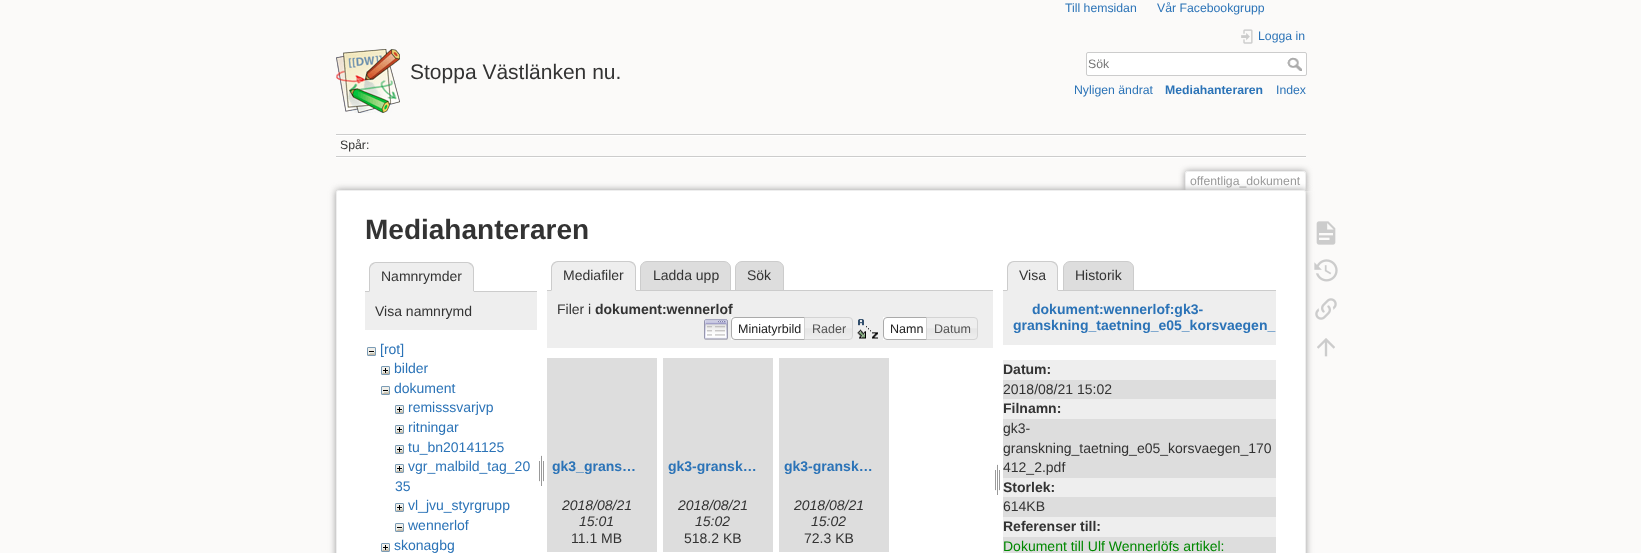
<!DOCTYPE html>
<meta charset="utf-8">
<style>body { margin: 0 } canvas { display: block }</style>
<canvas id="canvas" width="1641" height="553"></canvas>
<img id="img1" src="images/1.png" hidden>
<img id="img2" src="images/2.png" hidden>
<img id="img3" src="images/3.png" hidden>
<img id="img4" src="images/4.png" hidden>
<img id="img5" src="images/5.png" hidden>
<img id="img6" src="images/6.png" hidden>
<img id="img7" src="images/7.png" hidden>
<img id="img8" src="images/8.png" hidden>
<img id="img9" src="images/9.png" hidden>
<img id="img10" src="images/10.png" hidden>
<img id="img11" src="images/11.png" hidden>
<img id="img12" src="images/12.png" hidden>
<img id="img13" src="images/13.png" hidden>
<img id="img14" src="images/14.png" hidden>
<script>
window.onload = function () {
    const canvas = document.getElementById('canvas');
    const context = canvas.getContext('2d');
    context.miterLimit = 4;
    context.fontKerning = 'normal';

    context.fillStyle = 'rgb(251, 250, 249)';
    context.fillRect(0, 0, 1641, 553);
    context.drawImage(document.getElementById('img1'), 336, 49, 64, 64);
    context.drawImage(document.getElementById('img2'), 1241, 29, 12, 15);
    context.fillStyle = 'rgb(255, 255, 255)';
    context.beginPath();
    context.roundRect(1086.5, 52.5, 220, 23, 1.5);
    context.fill();
    context.strokeStyle = 'rgb(204, 204, 204)';
    context.stroke();
    context.drawImage(document.getElementById('img3'), 1287, 57, 15, 14);
    context.fillStyle = 'rgb(204, 204, 204)';
    context.fillRect(336, 134, 970, 1);
    context.fillStyle = 'rgb(255, 255, 255)';
    context.fillRect(336, 157, 970, 1);
    context.fillRect(336, 135, 970, 1);
    context.fillStyle = 'rgb(204, 204, 204)';
    context.fillRect(336, 156, 970, 1);
    context.save();
    context.beginPath();
    context.rect(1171, 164, 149, 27);
    context.clip();
    context.fillStyle = 'rgb(153, 153, 153)';
    context.filter = 'blur(3px)';
    context.beginPath();
    context.roundRect(1185, 171, 121, 20, 2);
    context.fill();
    context.filter = 'none';
    context.restore();
    context.fillStyle = 'rgb(255, 255, 255)';
    context.beginPath();
    context.roundRect(1186, 172, 119, 19, [1, 1, 0, 0]);
    context.fill();
    context.fillStyle = 'rgb(238, 238, 238)';
    context.fillRect(1186, 171, 119, 1);
    context.fillRect(1305, 172, 1, 19);
    context.fillRect(1185, 172, 1, 19);
    context.fillStyle = 'rgb(153, 153, 153)';
    context.filter = 'blur(3.5px)';
    context.beginPath();
    context.roundRect(336, 190, 970, 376, 2);
    context.fill();
    context.filter = 'none';
    context.fillStyle = 'rgb(255, 255, 255)';
    context.beginPath();
    context.roundRect(336.5, 190.5, 969, 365, 1.5);
    context.fill();
    context.strokeStyle = 'rgb(238, 238, 238)';
    context.stroke();
    context.fillStyle = 'rgb(204, 204, 204)';
    context.fillRect(365, 291, 172, 1);
    context.fillStyle = 'rgb(238, 238, 238)';
    context.beginPath();
    context.roundRect(369, 262, 105, 30, [7, 7, 0, 0]);
    context.fill();
    context.fillStyle = 'rgb(204, 204, 204)';
    context.beginPath();
    context.moveTo(376, 262);
    context.bezierCurveTo(374, 262, 372, 263, 371, 264);
    context.lineTo(372, 265);
    context.lineTo(375, 263);
    context.lineTo(468, 263);
    context.lineTo(471, 265);
    context.lineTo(472, 264);
    context.bezierCurveTo(471, 263, 469, 262, 467, 262);
    context.closePath();
    context.fill();
    context.beginPath();
    context.moveTo(474, 292);
    context.lineTo(474, 269);
    context.bezierCurveTo(474, 267, 473, 265, 472, 264);
    context.lineTo(471, 265);
    context.bezierCurveTo(472, 266, 473, 267.5, 473, 269);
    context.lineTo(473, 291);
    context.closePath();
    context.fill();
    context.fillStyle = 'rgb(238, 238, 238)';
    context.beginPath();
    context.moveTo(474, 292);
    context.lineTo(473, 291);
    context.lineTo(370, 291);
    context.lineTo(369, 292);
    context.closePath();
    context.fill();
    context.fillStyle = 'rgb(204, 204, 204)';
    context.beginPath();
    context.moveTo(369, 292);
    context.lineTo(370, 291);
    context.lineTo(370, 269);
    context.bezierCurveTo(370, 267.5, 371, 266, 372, 265);
    context.lineTo(371, 264);
    context.bezierCurveTo(370, 265, 369, 267, 369, 269);
    context.closePath();
    context.fill();
    context.fillStyle = 'rgb(238, 238, 238)';
    context.fillRect(365, 292, 172, 38);
    context.drawImage(document.getElementById('img4'), 367, 347, 9, 9);
    context.drawImage(document.getElementById('img5'), 381, 366, 9, 9);
    context.drawImage(document.getElementById('img4'), 381, 386, 9, 9);
    context.drawImage(document.getElementById('img5'), 395, 405, 9, 9);
    context.drawImage(document.getElementById('img5'), 395, 425, 9, 9);
    context.drawImage(document.getElementById('img5'), 395, 445, 9, 9);
    context.drawImage(document.getElementById('img5'), 395, 464, 9, 9);
    context.drawImage(document.getElementById('img5'), 395, 503, 9, 9);
    context.drawImage(document.getElementById('img4'), 395, 523, 9, 9);
    context.drawImage(document.getElementById('img5'), 381, 543, 9, 9);
    context.drawImage(document.getElementById('img6'), 539, 455, 5, 31);
    context.fillStyle = 'rgb(221, 221, 221)';
    context.beginPath();
    context.roundRect(640.5, 261.5, 90, 29, [6.5, 6.5, 0, 0]);
    context.fill();
    context.strokeStyle = 'rgb(204, 204, 204)';
    context.stroke();
    context.beginPath();
    context.roundRect(735.5, 261.5, 48, 29, [6.5, 6.5, 0, 0]);
    context.fill();
    context.stroke();
    context.fillStyle = 'rgb(204, 204, 204)';
    context.fillRect(547, 290, 446, 1);
    context.fillStyle = 'rgb(238, 238, 238)';
    context.beginPath();
    context.roundRect(551, 261, 85, 30, [7, 7, 0, 0]);
    context.fill();
    context.fillStyle = 'rgb(204, 204, 204)';
    context.beginPath();
    context.moveTo(558, 261);
    context.bezierCurveTo(556, 261, 554, 262, 553, 263);
    context.lineTo(554, 264);
    context.bezierCurveTo(555, 263, 556, 262, 558, 262);
    context.lineTo(629, 262);
    context.bezierCurveTo(630, 262, 632, 263, 633, 264);
    context.lineTo(634, 263);
    context.bezierCurveTo(633, 262, 631, 261, 629, 261);
    context.closePath();
    context.fill();
    context.beginPath();
    context.moveTo(636, 291);
    context.lineTo(636, 268);
    context.bezierCurveTo(636, 266, 635, 264, 634, 263);
    context.lineTo(633, 264);
    context.bezierCurveTo(634, 265, 635, 266.5, 635, 268);
    context.lineTo(635, 290);
    context.closePath();
    context.fill();
    context.fillStyle = 'rgb(238, 238, 238)';
    context.beginPath();
    context.moveTo(636, 291);
    context.lineTo(635, 290);
    context.lineTo(552, 290);
    context.lineTo(551, 291);
    context.closePath();
    context.fill();
    context.fillStyle = 'rgb(204, 204, 204)';
    context.beginPath();
    context.moveTo(551, 291);
    context.lineTo(552, 290);
    context.lineTo(552, 268);
    context.bezierCurveTo(552, 266.5, 553, 265, 554, 264);
    context.lineTo(553, 263);
    context.bezierCurveTo(552, 264, 551, 266, 551, 268);
    context.closePath();
    context.fill();
    context.fillStyle = 'rgb(238, 238, 238)';
    context.fillRect(547, 291, 446, 57);
    context.drawImage(document.getElementById('img7'), 704, 319, 24, 21);
    context.fillStyle = 'rgb(255, 255, 255)';
    context.fillRect(731, 317, 73, 23);
    context.beginPath();
    context.roundRect(731.5, 317.5, 77, 22, [3.5, 0, 0, 3.5]);
    context.strokeStyle = 'rgb(170, 170, 170)';
    context.stroke();
    context.drawImage(document.getElementById('img8'), 805, 317, 48, 23);
    context.beginPath();
    context.roundRect(804.5, 317.5, 48, 22, [0, 3.5, 3.5, 0]);
    context.strokeStyle = 'rgb(211, 211, 211)';
    context.stroke();
    context.drawImage(document.getElementById('img9'), 857, 319, 21, 20);
    context.fillRect(883, 317, 43, 23);
    context.beginPath();
    context.roundRect(883.5, 317.5, 47, 22, [3.5, 0, 0, 3.5]);
    context.strokeStyle = 'rgb(170, 170, 170)';
    context.stroke();
    context.drawImage(document.getElementById('img10'), 927, 317, 51, 23);
    context.beginPath();
    context.roundRect(926.5, 317.5, 51, 22, [0, 3.5, 3.5, 0]);
    context.strokeStyle = 'rgb(211, 211, 211)';
    context.stroke();
    context.fillStyle = 'rgb(221, 221, 221)';
    context.fillRect(547, 358, 110, 194);
    context.fillRect(663, 358, 110, 194);
    context.fillRect(779, 358, 110, 194);
    context.drawImage(document.getElementById('img6'), 995, 464, 5, 31);
    context.beginPath();
    context.roundRect(1063.5, 261.5, 70, 29, [6.5, 6.5, 0, 0]);
    context.fill();
    context.strokeStyle = 'rgb(204, 204, 204)';
    context.stroke();
    context.fillStyle = 'rgb(204, 204, 204)';
    context.fillRect(1003, 290, 273, 1);
    context.fillStyle = 'rgb(238, 238, 238)';
    context.beginPath();
    context.roundRect(1007, 261, 51, 30, [7, 7, 0, 0]);
    context.fill();
    context.fillStyle = 'rgb(204, 204, 204)';
    context.beginPath();
    context.moveTo(1014, 261);
    context.bezierCurveTo(1012, 261, 1010, 262, 1009, 263);
    context.lineTo(1010, 264);
    context.bezierCurveTo(1011, 263, 1012, 262, 1014, 262);
    context.lineTo(1051, 262);
    context.bezierCurveTo(1052, 262, 1054, 263, 1055, 264);
    context.lineTo(1056, 263);
    context.bezierCurveTo(1055, 262, 1053, 261, 1051, 261);
    context.closePath();
    context.fill();
    context.beginPath();
    context.moveTo(1058, 291);
    context.lineTo(1058, 268);
    context.bezierCurveTo(1058, 266, 1057, 264, 1056, 263);
    context.lineTo(1055, 264);
    context.bezierCurveTo(1056, 265, 1057, 266.5, 1057, 268);
    context.lineTo(1057, 290);
    context.closePath();
    context.fill();
    context.fillStyle = 'rgb(238, 238, 238)';
    context.beginPath();
    context.moveTo(1058, 291);
    context.lineTo(1057, 290);
    context.lineTo(1008, 290);
    context.lineTo(1007, 291);
    context.closePath();
    context.fill();
    context.fillStyle = 'rgb(204, 204, 204)';
    context.beginPath();
    context.moveTo(1007, 291);
    context.lineTo(1008, 290);
    context.lineTo(1008, 268);
    context.bezierCurveTo(1008, 266.5, 1009, 265, 1010, 264);
    context.lineTo(1009, 263);
    context.bezierCurveTo(1008, 264, 1007, 266, 1007, 268);
    context.closePath();
    context.fill();
    context.fillStyle = 'rgb(238, 238, 238)';
    context.fillRect(1003, 291, 273, 54);
    context.fillRect(1003, 360, 273, 20);
    context.fillStyle = 'rgb(221, 221, 221)';
    context.fillRect(1003, 380, 273, 19);
    context.fillStyle = 'rgb(238, 238, 238)';
    context.fillRect(1003, 399, 273, 20);
    context.fillStyle = 'rgb(221, 221, 221)';
    context.fillRect(1003, 419, 273, 59);
    context.fillStyle = 'rgb(238, 238, 238)';
    context.fillRect(1003, 478, 273, 19);
    context.fillStyle = 'rgb(221, 221, 221)';
    context.fillRect(1003, 497, 273, 20);
    context.fillStyle = 'rgb(238, 238, 238)';
    context.fillRect(1003, 517, 273, 20);
    context.fillStyle = 'rgb(221, 221, 221)';
    context.fillRect(1003, 537, 273, 16);
    context.drawImage(document.getElementById('img11'), 1316, 221, 20, 24);
    context.drawImage(document.getElementById('img12'), 1314, 259, 24, 23);
    context.drawImage(document.getElementById('img13'), 1315, 298, 22, 22);
    context.drawImage(document.getElementById('img14'), 1317, 338, 18, 19);
    context.font = '12.25px Liberation Sans';
    context.fillStyle = 'rgb(43, 115, 183)';
    context.fillText('Till hemsidan', 1065, 12);
    context.fillText('Vår Facebookgrupp', 1157, 12);
    context.font = '21px Liberation Sans';
    context.fillStyle = 'rgb(51, 51, 51)';
    context.fillText('Stoppa Västlänken nu.', 410, 79);
    context.font = '12.25px Liberation Sans';
    context.fillStyle = 'rgb(43, 115, 183)';
    context.fillText('Logga in', 1258, 40);
    context.fillStyle = 'rgb(117, 117, 117)';
    context.fillText('Sök', 1088, 68);
    context.fillStyle = 'rgb(43, 115, 183)';
    context.fillText('Nyligen ändrat', 1074, 94);
    context.font = 'bold 12.25px Liberation Sans';
    context.fillText('Mediahanteraren', 1165, 94);
    context.font = '12.25px Liberation Sans';
    context.fillText('Index', 1276, 94);
    context.fillStyle = 'rgb(51, 51, 51)';
    context.fillText('Spår:', 340, 149);
    context.fillStyle = 'rgb(153, 153, 153)';
    context.fillText('offentliga_dokument', 1190, 185);
    context.font = 'bold 28px Liberation Sans';
    context.fillStyle = 'rgb(51, 51, 51)';
    context.fillText('Mediahanteraren', 365, 239);
    context.font = '14px Liberation Sans';
    context.fillText('Namnrymder', 381, 281);
    context.fillText('Visa namnrymd', 375, 316);
    context.fillStyle = 'rgb(43, 115, 183)';
    context.fillText('[rot]', 380, 354);
    context.fillText('bilder', 394, 373);
    context.fillText('dokument', 394, 393);
    context.fillText('remisssvarjvp', 408, 412);
    context.fillText('ritningar', 408, 432);
    context.fillText('tu_bn20141125', 408, 452);
    context.fillText('vgr_malbild_tag_20', 408, 471);
    context.fillText('35', 395, 491);
    context.fillText('vl_jvu_styrgrupp', 408, 510);
    context.fillText('wennerlof', 408, 530);
    context.fillText('skonagbg', 394, 550);
    context.fillStyle = 'rgb(51, 51, 51)';
    context.fillText('Mediafiler', 563, 280);
    context.fillText('Ladda upp', 653, 280);
    context.fillText('Sök', 747, 280);
    context.fillText('Filer i', 557, 314);
    context.font = 'bold 14px Liberation Sans';
    context.fillText('dokument:wennerlof', 595, 314);
    context.font = '12.5px Liberation Sans';
    context.fillStyle = 'rgb(33, 33, 33)';
    context.fillText('Miniatyrbild', 738, 333);
    context.fillStyle = 'rgb(85, 85, 85)';
    context.fillText('Rader', 812, 333);
    context.fillStyle = 'rgb(33, 33, 33)';
    context.fillText('Namn', 890, 333);
    context.fillStyle = 'rgb(85, 85, 85)';
    context.fillText('Datum', 934, 333);
    context.font = 'bold 14px Liberation Sans';
    context.fillStyle = 'rgb(43, 115, 183)';
    context.fillText('gk3_grans…', 552, 471);
    context.font = 'italic 14px Liberation Sans';
    context.fillStyle = 'rgb(51, 51, 51)';
    context.fillText('2018/08/21', 562, 510);
    context.fillText('15:01', 579, 526);
    context.font = '14px Liberation Sans';
    context.fillText('11.1 MB', 571, 543);
    context.font = 'bold 14px Liberation Sans';
    context.fillStyle = 'rgb(43, 115, 183)';
    context.fillText('gk3-gransk…', 668, 471);
    context.font = 'italic 14px Liberation Sans';
    context.fillStyle = 'rgb(51, 51, 51)';
    context.fillText('2018/08/21', 678, 510);
    context.fillText('15:02', 695, 526);
    context.font = '14px Liberation Sans';
    context.fillText('518.2 KB', 684, 543);
    context.font = 'bold 14px Liberation Sans';
    context.fillStyle = 'rgb(43, 115, 183)';
    context.fillText('gk3-gransk…', 784, 471);
    context.font = 'italic 14px Liberation Sans';
    context.fillStyle = 'rgb(51, 51, 51)';
    context.fillText('2018/08/21', 794, 510);
    context.fillText('15:02', 811, 526);
    context.font = '14px Liberation Sans';
    context.fillText('72.3 KB', 804, 543);
    context.fillText('Visa', 1019, 280);
    context.fillText('Historik', 1075, 280);
    context.font = 'bold 14px Liberation Sans';
    context.fillStyle = 'rgb(43, 115, 183)';
    context.fillText('dokument:wennerlof:gk3-', 1032, 314);
    context.fillText('granskning_taetning_e05_korsvaegen_', 1013, 330);
    context.fillStyle = 'rgb(51, 51, 51)';
    context.fillText('Datum:', 1003, 374);
    context.font = '14px Liberation Sans';
    context.fillText('2018/08/21 15:02', 1003, 394);
    context.font = 'bold 14px Liberation Sans';
    context.fillText('Filnamn:', 1003, 413);
    context.font = '14px Liberation Sans';
    context.fillText('gk3-', 1003, 433);
    context.fillText('granskning_taetning_e05_korsvaegen_170', 1003, 453);
    context.fillText('412_2.pdf', 1003, 472);
    context.font = 'bold 14px Liberation Sans';
    context.fillText('Storlek:', 1003, 492);
    context.font = '14px Liberation Sans';
    context.fillText('614KB', 1003, 511);
    context.font = 'bold 14px Liberation Sans';
    context.fillText('Referenser till:', 1003, 531);
    context.font = '14px Liberation Sans';
    context.fillStyle = 'rgb(0, 136, 0)';
    context.fillText('Dokument till Ulf Wennerlöfs artikel:', 1003, 551);
};
</script>
